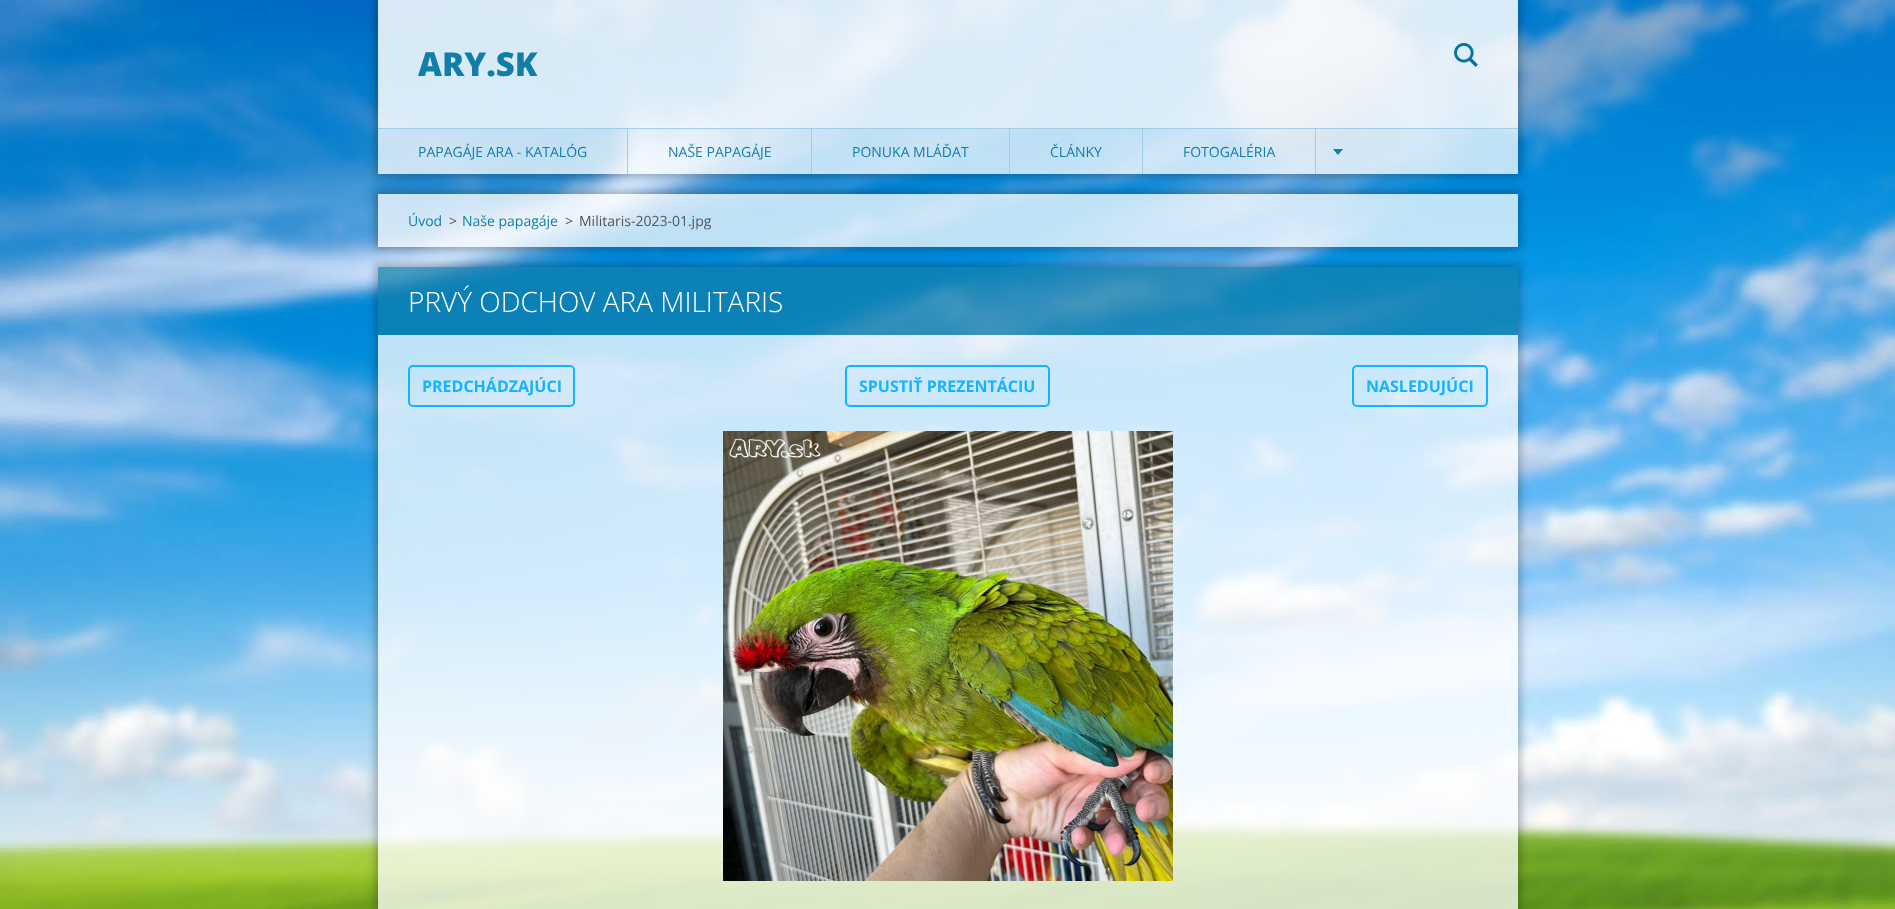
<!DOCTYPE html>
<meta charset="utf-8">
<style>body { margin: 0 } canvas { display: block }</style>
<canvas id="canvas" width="1895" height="909"></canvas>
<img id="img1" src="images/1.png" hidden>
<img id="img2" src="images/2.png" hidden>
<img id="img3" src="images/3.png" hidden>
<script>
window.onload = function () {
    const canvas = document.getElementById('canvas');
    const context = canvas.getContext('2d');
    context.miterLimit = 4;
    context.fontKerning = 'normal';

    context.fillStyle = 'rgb(255, 255, 255)';
    context.fillRect(0, 0, 1895, 909);
    context.drawImage(document.getElementById('img1'), 0, 0, 1895, 909);
    context.save();
    context.beginPath();
    context.moveTo(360, 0);
    context.lineTo(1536, 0);
    context.lineTo(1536, 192);
    context.lineTo(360, 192);
    context.closePath();
    context.moveTo(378, 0);
    context.lineTo(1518, 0);
    context.lineTo(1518, 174);
    context.lineTo(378, 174);
    context.closePath();
    context.clip('evenodd');
    context.fillStyle = 'rgba(0, 0, 0, 0.25)';
    context.filter = 'blur(4.5px)';
    context.beginPath();
    context.rect(375, -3, 1146, 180);
    context.fill();
    context.filter = 'none';
    context.restore();
    context.fillStyle = 'rgba(255, 255, 255, 0.85)';
    context.fillRect(378, 0, 1140, 128);
    context.drawImage(document.getElementById('img2'), 1454, 43, 24, 24);
    context.fillStyle = 'rgb(162, 205, 230)';
    context.fillRect(378, 128, 1140, 1);
    context.fillStyle = 'rgba(255, 255, 255, 0.75)';
    context.fillRect(378, 129, 1140, 45);
    context.fillStyle = 'rgb(162, 205, 230)';
    context.fillRect(627, 129, 1, 45);
    context.fillRect(811, 129, 1, 45);
    context.fillRect(1009, 129, 1, 45);
    context.fillRect(1142, 129, 1, 45);
    context.fillRect(1315, 129, 1, 45);
    context.fillStyle = 'rgb(16, 126, 168)';
    context.beginPath();
    context.moveTo(1333, 149);
    context.lineTo(1343, 149);
    context.lineTo(1338, 155);
    context.closePath();
    context.fill();
    context.save();
    context.beginPath();
    context.moveTo(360, 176);
    context.lineTo(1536, 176);
    context.lineTo(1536, 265);
    context.lineTo(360, 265);
    context.closePath();
    context.moveTo(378, 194);
    context.lineTo(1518, 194);
    context.lineTo(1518, 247);
    context.lineTo(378, 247);
    context.closePath();
    context.clip('evenodd');
    context.fillStyle = 'rgba(0, 0, 0, 0.25)';
    context.filter = 'blur(4.5px)';
    context.beginPath();
    context.rect(375, 191, 1146, 59);
    context.fill();
    context.filter = 'none';
    context.restore();
    context.fillStyle = 'rgba(255, 255, 255, 0.75)';
    context.fillRect(378, 194, 1140, 53);
    context.save();
    context.beginPath();
    context.moveTo(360, 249);
    context.lineTo(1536, 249);
    context.lineTo(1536, 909);
    context.lineTo(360, 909);
    context.closePath();
    context.moveTo(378, 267);
    context.lineTo(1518, 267);
    context.lineTo(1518, 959);
    context.lineTo(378, 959);
    context.closePath();
    context.clip('evenodd');
    context.fillStyle = 'rgba(0, 0, 0, 0.25)';
    context.filter = 'blur(4.5px)';
    context.beginPath();
    context.rect(375, 264, 1146, 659);
    context.fill();
    context.filter = 'none';
    context.restore();
    context.fillStyle = 'rgba(16, 126, 168, 0.71)';
    context.fillRect(378, 267, 1140, 68);
    context.fillStyle = 'rgba(255, 255, 255, 0.75)';
    context.fillRect(378, 335, 1140, 570);
    context.beginPath();
    context.roundRect(409, 366, 165, 40, 4);
    context.strokeStyle = 'rgb(19, 180, 255)';
    context.lineWidth = 2;
    context.stroke();
    context.beginPath();
    context.roundRect(846, 366, 203, 40, 4);
    context.stroke();
    context.beginPath();
    context.roundRect(1353, 366, 134, 40, 4);
    context.stroke();
    context.drawImage(document.getElementById('img3'), 723, 431, 450, 450);
    context.fillRect(378, 905, 1140, 4);
    context.font = '800 33px Open Sans';
    context.fillStyle = 'rgb(16, 126, 168)';
    context.fillText('ARY.SK', 418, 76);
    context.font = '14px Open Sans';
    context.fillText('PAPAGÁJE ARA - KATALÓG', 418, 157);
    context.fillText('NAŠE PAPAGÁJE', 668, 157);
    context.fillText('PONUKA MLÁĎAT', 852, 157);
    context.fillText('ČLÁNKY', 1050, 157);
    context.fillText('FOTOGALÉRIA', 1183, 157);
    context.fillText('Úvod', 408, 226);
    context.fillStyle = 'rgb(85, 85, 85)';
    context.fillText('>', 449, 226);
    context.fillStyle = 'rgb(16, 126, 168)';
    context.fillText('Naše papagáje', 462, 226);
    context.fillStyle = 'rgb(85, 85, 85)';
    context.fillText('>', 565, 226);
    context.fillText('Militaris-2023-01.jpg', 579, 226);
    context.font = '300 28px Open Sans';
    context.fillStyle = 'rgb(255, 255, 255)';
    context.fillText('PRVÝ ODCHOV ARA MILITARIS', 408, 312);
    context.font = 'bold 16px Open Sans';
    context.fillStyle = 'rgb(19, 180, 255)';
    context.fillText('PREDCHÁDZAJÚCI', 422, 392);
    context.fillText('SPUSTIŤ PREZENTÁCIU', 859, 392);
    context.fillText('NASLEDUJÚCI', 1366, 392);
};
</script>
